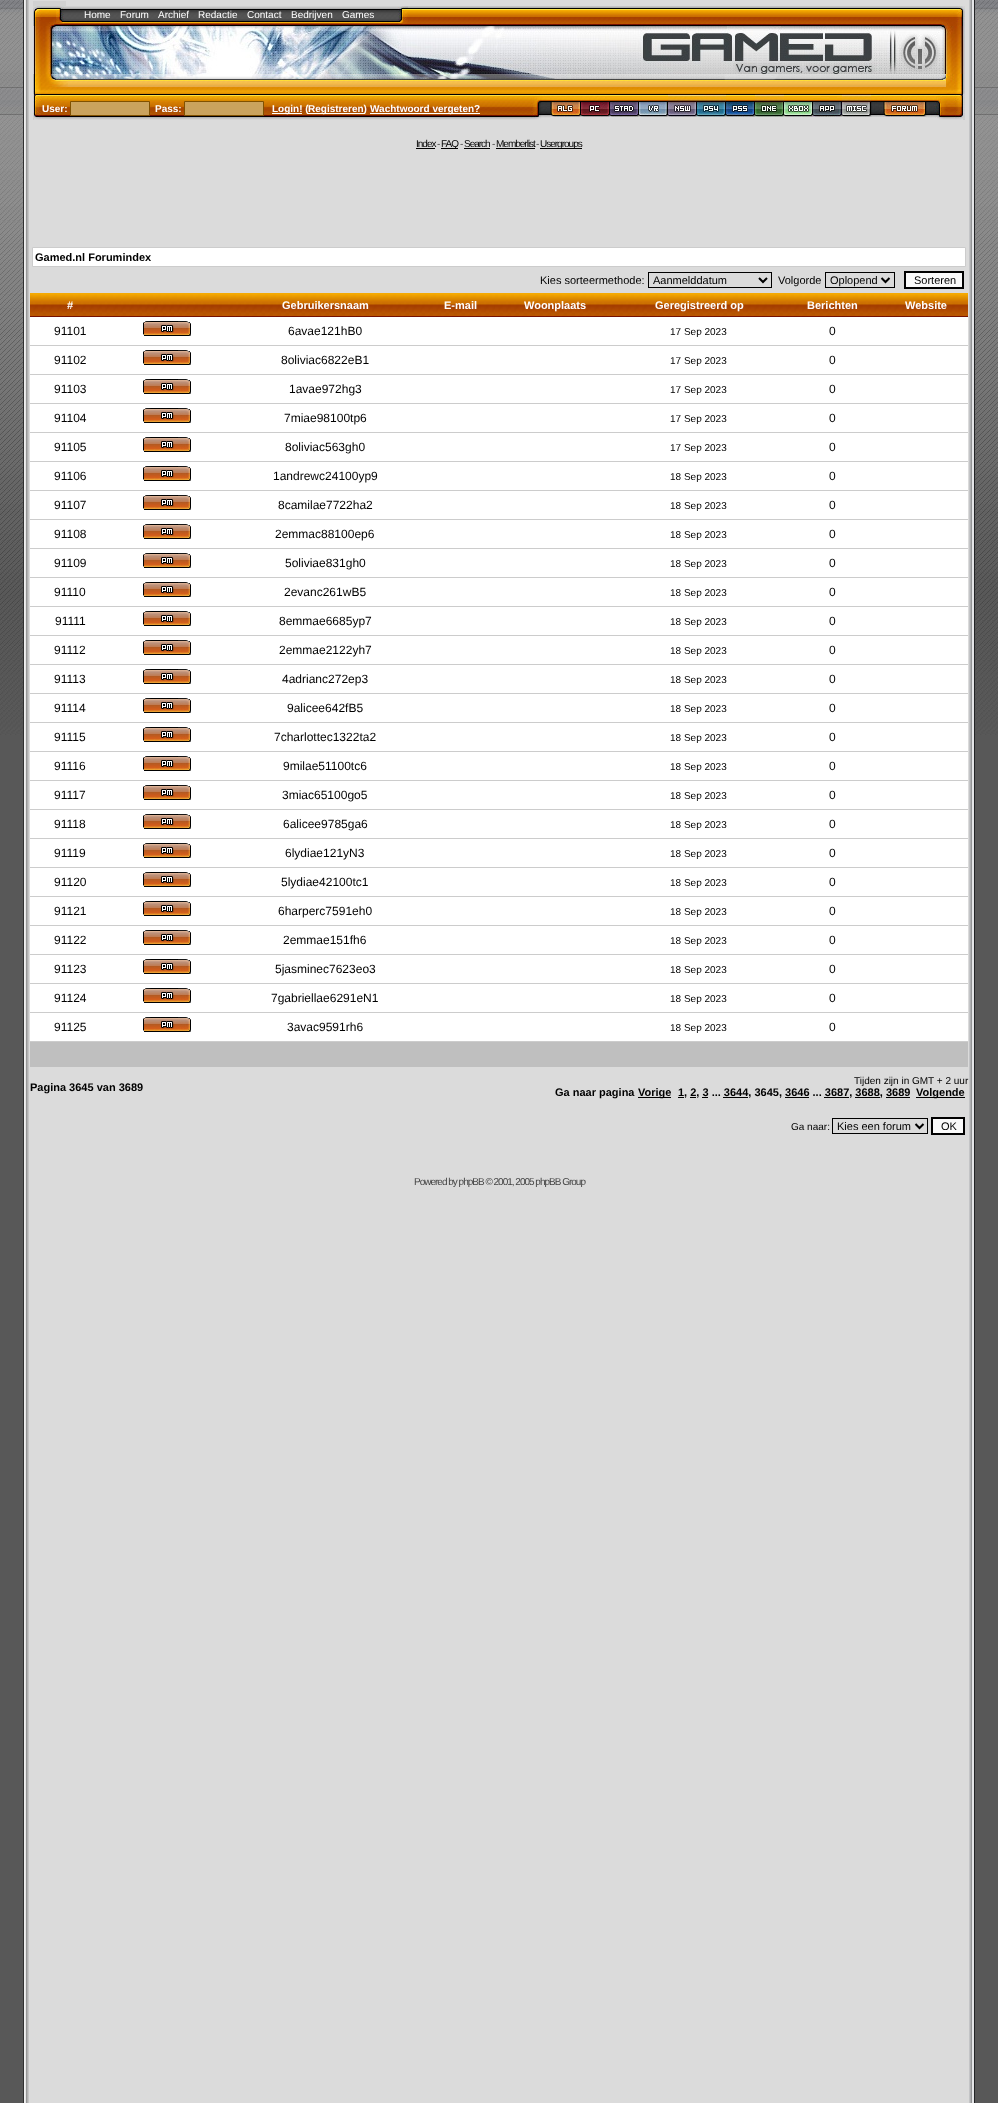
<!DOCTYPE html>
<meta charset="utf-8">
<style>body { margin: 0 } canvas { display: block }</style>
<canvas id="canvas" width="998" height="2103"></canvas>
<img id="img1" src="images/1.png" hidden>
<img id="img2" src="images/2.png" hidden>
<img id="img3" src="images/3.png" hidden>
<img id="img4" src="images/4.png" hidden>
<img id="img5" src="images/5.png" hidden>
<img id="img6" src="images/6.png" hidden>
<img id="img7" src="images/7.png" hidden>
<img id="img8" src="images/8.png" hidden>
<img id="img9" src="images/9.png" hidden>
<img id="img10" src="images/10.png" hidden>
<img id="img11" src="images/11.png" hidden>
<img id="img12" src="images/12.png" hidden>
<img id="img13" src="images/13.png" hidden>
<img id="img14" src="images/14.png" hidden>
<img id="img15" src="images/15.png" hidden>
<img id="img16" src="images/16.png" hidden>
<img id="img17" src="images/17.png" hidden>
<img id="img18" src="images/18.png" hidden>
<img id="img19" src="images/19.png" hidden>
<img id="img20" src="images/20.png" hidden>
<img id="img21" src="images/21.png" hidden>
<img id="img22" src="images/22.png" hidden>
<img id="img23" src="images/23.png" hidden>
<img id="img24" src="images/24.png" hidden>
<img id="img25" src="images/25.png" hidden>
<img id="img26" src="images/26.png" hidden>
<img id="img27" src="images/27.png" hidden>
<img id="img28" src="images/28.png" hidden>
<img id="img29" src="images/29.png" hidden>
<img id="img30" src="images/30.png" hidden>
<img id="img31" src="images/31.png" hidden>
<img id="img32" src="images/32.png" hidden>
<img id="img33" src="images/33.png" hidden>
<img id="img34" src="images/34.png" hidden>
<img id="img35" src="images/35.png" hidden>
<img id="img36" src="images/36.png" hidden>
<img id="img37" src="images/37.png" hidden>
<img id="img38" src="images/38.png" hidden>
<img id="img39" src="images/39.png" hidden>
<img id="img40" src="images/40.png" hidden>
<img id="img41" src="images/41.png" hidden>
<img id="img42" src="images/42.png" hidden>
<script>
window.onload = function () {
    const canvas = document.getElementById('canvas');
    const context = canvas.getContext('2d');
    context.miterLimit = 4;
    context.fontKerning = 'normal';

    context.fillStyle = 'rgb(88, 88, 88)';
    context.fillRect(0, 0, 998, 2103);
    context.drawImage(document.getElementById('img1'), 0, 0, 998, 735);
    context.drawImage(document.getElementById('img2'), 23, 0, 6, 2103);
    context.fillStyle = 'rgb(219, 219, 219)';
    context.fillRect(29, 0, 940, 2103);
    context.fillStyle = 'rgb(209, 209, 209)';
    context.fillRect(33, 1, 33, 5);
    context.drawImage(document.getElementById('img3'), 33, 6, 23, 20);
    context.drawImage(document.getElementById('img4'), 56, 6, 10, 20);
    context.drawImage(document.getElementById('img5'), 66, 6, 332, 20);
    context.drawImage(document.getElementById('img6'), 398, 6, 10, 20);
    context.drawImage(document.getElementById('img7'), 408, 6, 533, 20);
    context.drawImage(document.getElementById('img8'), 941, 6, 24, 20);
    context.drawImage(document.getElementById('img9'), 33, 26, 932, 48);
    context.drawImage(document.getElementById('img10'), 33, 74, 19, 20);
    context.drawImage(document.getElementById('img11'), 52, 74, 894, 6);
    context.drawImage(document.getElementById('img12'), 52, 80, 894, 14);
    context.drawImage(document.getElementById('img13'), 52, 80, 16, 8);
    context.drawImage(document.getElementById('img14'), 946, 74, 19, 20);
    context.drawImage(document.getElementById('img15'), 33, 94, 9, 26);
    context.drawImage(document.getElementById('img16'), 42, 94, 489, 26);
    context.fillStyle = 'rgb(202, 163, 94)';
    context.beginPath();
    context.rect(70.5, 101.5, 79, 14);
    context.fill();
    context.strokeStyle = 'rgb(128, 81, 1)';
    context.stroke();
    context.beginPath();
    context.rect(184.5, 101.5, 79, 14);
    context.fill();
    context.stroke();
    context.fillStyle = 'rgb(255, 255, 255)';
    context.fillRect(272, 113, 30, 1);
    context.fillRect(308, 113, 56, 1);
    context.fillRect(370, 113, 110, 1);
    context.drawImage(document.getElementById('img17'), 531, 94, 19, 26);
    context.drawImage(document.getElementById('img18'), 550, 94, 31, 23);
    context.drawImage(document.getElementById('img19'), 581, 94, 29, 23);
    context.drawImage(document.getElementById('img20'), 610, 94, 29, 23);
    context.drawImage(document.getElementById('img21'), 639, 94, 29, 23);
    context.drawImage(document.getElementById('img22'), 668, 94, 29, 23);
    context.drawImage(document.getElementById('img23'), 697, 94, 29, 23);
    context.drawImage(document.getElementById('img24'), 726, 94, 29, 23);
    context.drawImage(document.getElementById('img25'), 755, 94, 29, 23);
    context.drawImage(document.getElementById('img26'), 784, 94, 29, 23);
    context.drawImage(document.getElementById('img27'), 813, 94, 29, 23);
    context.drawImage(document.getElementById('img28'), 842, 94, 29, 23);
    context.drawImage(document.getElementById('img29'), 871, 94, 13, 23);
    context.drawImage(document.getElementById('img30'), 884, 94, 42, 23);
    context.drawImage(document.getElementById('img31'), 926, 94, 20, 26);
    context.drawImage(document.getElementById('img32'), 946, 94, 19, 26);
    context.fillStyle = 'rgb(0, 0, 0)';
    context.fillRect(416, 148, 19, 1);
    context.fillRect(441, 148, 17, 1);
    context.fillRect(464, 148, 26, 1);
    context.fillRect(496, 148, 39, 1);
    context.fillRect(540, 148, 42, 1);
    context.fillStyle = 'rgb(255, 255, 255)';
    context.beginPath();
    context.rect(32.5, 247.5, 933, 19);
    context.fill();
    context.strokeStyle = 'rgb(204, 204, 204)';
    context.stroke();
    context.strokeStyle = 'rgb(0, 0, 0)';
    context.strokeRect(648.5, 272.5, 123, 15);
    context.beginPath();
    context.moveTo(759, 278);
    context.lineTo(763, 282);
    context.lineTo(767, 278);
    context.lineWidth = 2;
    context.stroke();
    context.lineWidth = 1;
    context.strokeRect(825.5, 272.5, 69, 15);
    context.beginPath();
    context.moveTo(881.5, 278);
    context.lineTo(885.5, 282);
    context.lineTo(889.5, 278);
    context.lineWidth = 2;
    context.stroke();
    context.fillStyle = 'rgb(250, 250, 250)';
    context.beginPath();
    context.rect(905, 272, 58, 16);
    context.fill();
    context.stroke();
    context.drawImage(document.getElementById('img33'), 30, 293, 80, 24);
    context.drawImage(document.getElementById('img34'), 110, 293, 115, 24);
    context.drawImage(document.getElementById('img35'), 225, 293, 200, 24);
    context.drawImage(document.getElementById('img36'), 425, 293, 70, 24);
    context.drawImage(document.getElementById('img37'), 495, 293, 120, 24);
    context.drawImage(document.getElementById('img38'), 615, 293, 168, 24);
    context.drawImage(document.getElementById('img39'), 783, 293, 100, 24);
    context.drawImage(document.getElementById('img40'), 883, 293, 85, 24);
    context.fillStyle = 'rgb(255, 255, 255)';
    context.fillRect(30, 317, 938, 28);
    context.fillStyle = 'rgb(204, 204, 204)';
    context.fillRect(30, 345, 938, 1);
    context.drawImage(document.getElementById('img41'), 143, 321, 48, 15);
    context.fillStyle = 'rgb(255, 255, 255)';
    context.fillRect(30, 346, 938, 28);
    context.fillStyle = 'rgb(204, 204, 204)';
    context.fillRect(30, 374, 938, 1);
    context.drawImage(document.getElementById('img41'), 143, 350, 48, 15);
    context.fillStyle = 'rgb(255, 255, 255)';
    context.fillRect(30, 375, 938, 28);
    context.fillStyle = 'rgb(204, 204, 204)';
    context.fillRect(30, 403, 938, 1);
    context.drawImage(document.getElementById('img41'), 143, 379, 48, 15);
    context.fillStyle = 'rgb(255, 255, 255)';
    context.fillRect(30, 404, 938, 28);
    context.fillStyle = 'rgb(204, 204, 204)';
    context.fillRect(30, 432, 938, 1);
    context.drawImage(document.getElementById('img41'), 143, 408, 48, 15);
    context.fillStyle = 'rgb(255, 255, 255)';
    context.fillRect(30, 433, 938, 28);
    context.fillStyle = 'rgb(204, 204, 204)';
    context.fillRect(30, 461, 938, 1);
    context.drawImage(document.getElementById('img41'), 143, 437, 48, 15);
    context.fillStyle = 'rgb(255, 255, 255)';
    context.fillRect(30, 462, 938, 28);
    context.fillStyle = 'rgb(204, 204, 204)';
    context.fillRect(30, 490, 938, 1);
    context.drawImage(document.getElementById('img41'), 143, 466, 48, 15);
    context.fillStyle = 'rgb(255, 255, 255)';
    context.fillRect(30, 491, 938, 28);
    context.fillStyle = 'rgb(204, 204, 204)';
    context.fillRect(30, 519, 938, 1);
    context.drawImage(document.getElementById('img41'), 143, 495, 48, 15);
    context.fillStyle = 'rgb(255, 255, 255)';
    context.fillRect(30, 520, 938, 28);
    context.fillStyle = 'rgb(204, 204, 204)';
    context.fillRect(30, 548, 938, 1);
    context.drawImage(document.getElementById('img41'), 143, 524, 48, 15);
    context.fillStyle = 'rgb(255, 255, 255)';
    context.fillRect(30, 549, 938, 28);
    context.fillStyle = 'rgb(204, 204, 204)';
    context.fillRect(30, 577, 938, 1);
    context.drawImage(document.getElementById('img41'), 143, 553, 48, 15);
    context.fillStyle = 'rgb(255, 255, 255)';
    context.fillRect(30, 578, 938, 28);
    context.fillStyle = 'rgb(204, 204, 204)';
    context.fillRect(30, 606, 938, 1);
    context.drawImage(document.getElementById('img41'), 143, 582, 48, 15);
    context.fillStyle = 'rgb(255, 255, 255)';
    context.fillRect(30, 607, 938, 28);
    context.fillStyle = 'rgb(204, 204, 204)';
    context.fillRect(30, 635, 938, 1);
    context.drawImage(document.getElementById('img41'), 143, 611, 48, 15);
    context.fillStyle = 'rgb(255, 255, 255)';
    context.fillRect(30, 636, 938, 28);
    context.fillStyle = 'rgb(204, 204, 204)';
    context.fillRect(30, 664, 938, 1);
    context.drawImage(document.getElementById('img41'), 143, 640, 48, 15);
    context.fillStyle = 'rgb(255, 255, 255)';
    context.fillRect(30, 665, 938, 28);
    context.fillStyle = 'rgb(204, 204, 204)';
    context.fillRect(30, 693, 938, 1);
    context.drawImage(document.getElementById('img41'), 143, 669, 48, 15);
    context.fillStyle = 'rgb(255, 255, 255)';
    context.fillRect(30, 694, 938, 28);
    context.fillStyle = 'rgb(204, 204, 204)';
    context.fillRect(30, 722, 938, 1);
    context.drawImage(document.getElementById('img41'), 143, 698, 48, 15);
    context.fillStyle = 'rgb(255, 255, 255)';
    context.fillRect(30, 723, 938, 28);
    context.fillStyle = 'rgb(204, 204, 204)';
    context.fillRect(30, 751, 938, 1);
    context.drawImage(document.getElementById('img41'), 143, 727, 48, 15);
    context.fillStyle = 'rgb(255, 255, 255)';
    context.fillRect(30, 752, 938, 28);
    context.fillStyle = 'rgb(204, 204, 204)';
    context.fillRect(30, 780, 938, 1);
    context.drawImage(document.getElementById('img41'), 143, 756, 48, 15);
    context.fillStyle = 'rgb(255, 255, 255)';
    context.fillRect(30, 781, 938, 28);
    context.fillStyle = 'rgb(204, 204, 204)';
    context.fillRect(30, 809, 938, 1);
    context.drawImage(document.getElementById('img41'), 143, 785, 48, 15);
    context.fillStyle = 'rgb(255, 255, 255)';
    context.fillRect(30, 810, 938, 28);
    context.fillStyle = 'rgb(204, 204, 204)';
    context.fillRect(30, 838, 938, 1);
    context.drawImage(document.getElementById('img41'), 143, 814, 48, 15);
    context.fillStyle = 'rgb(255, 255, 255)';
    context.fillRect(30, 839, 938, 28);
    context.fillStyle = 'rgb(204, 204, 204)';
    context.fillRect(30, 867, 938, 1);
    context.drawImage(document.getElementById('img41'), 143, 843, 48, 15);
    context.fillStyle = 'rgb(255, 255, 255)';
    context.fillRect(30, 868, 938, 28);
    context.fillStyle = 'rgb(204, 204, 204)';
    context.fillRect(30, 896, 938, 1);
    context.drawImage(document.getElementById('img41'), 143, 872, 48, 15);
    context.fillStyle = 'rgb(255, 255, 255)';
    context.fillRect(30, 897, 938, 28);
    context.fillStyle = 'rgb(204, 204, 204)';
    context.fillRect(30, 925, 938, 1);
    context.drawImage(document.getElementById('img41'), 143, 901, 48, 15);
    context.fillStyle = 'rgb(255, 255, 255)';
    context.fillRect(30, 926, 938, 28);
    context.fillStyle = 'rgb(204, 204, 204)';
    context.fillRect(30, 954, 938, 1);
    context.drawImage(document.getElementById('img41'), 143, 930, 48, 15);
    context.fillStyle = 'rgb(255, 255, 255)';
    context.fillRect(30, 955, 938, 28);
    context.fillStyle = 'rgb(204, 204, 204)';
    context.fillRect(30, 983, 938, 1);
    context.drawImage(document.getElementById('img41'), 143, 959, 48, 15);
    context.fillStyle = 'rgb(255, 255, 255)';
    context.fillRect(30, 984, 938, 28);
    context.fillStyle = 'rgb(204, 204, 204)';
    context.fillRect(30, 1012, 938, 1);
    context.drawImage(document.getElementById('img41'), 143, 988, 48, 15);
    context.fillStyle = 'rgb(255, 255, 255)';
    context.fillRect(30, 1013, 938, 28);
    context.fillStyle = 'rgb(204, 204, 204)';
    context.fillRect(30, 1041, 938, 1);
    context.drawImage(document.getElementById('img41'), 143, 1017, 48, 15);
    context.fillStyle = 'rgb(191, 191, 191)';
    context.fillRect(30, 1042, 938, 25);
    context.fillStyle = 'rgb(0, 0, 0)';
    context.fillRect(638, 1097, 33, 1);
    context.fillRect(678, 1097, 6, 1);
    context.fillRect(690, 1097, 6, 1);
    context.fillRect(702, 1097, 6, 1);
    context.fillRect(723, 1097, 25, 1);
    context.fillRect(785, 1097, 24, 1);
    context.fillRect(824, 1097, 25, 1);
    context.fillRect(855, 1097, 25, 1);
    context.fillRect(886, 1097, 24, 1);
    context.fillRect(916, 1097, 49, 1);
    context.lineWidth = 1;
    context.strokeRect(832.5, 1118.5, 95, 15);
    context.beginPath();
    context.moveTo(915.5, 1124);
    context.lineTo(919.5, 1128);
    context.lineTo(923.5, 1124);
    context.lineWidth = 2;
    context.stroke();
    context.fillStyle = 'rgb(250, 250, 250)';
    context.beginPath();
    context.rect(932, 1118, 32, 16);
    context.fill();
    context.stroke();
    context.drawImage(document.getElementById('img42'), 969, 0, 6, 2103);
    context.font = '10px Liberation Sans';
    context.fillStyle = 'rgb(255, 255, 255)';
    context.fillText('Home', 84, 18);
    context.fillText('Forum', 120, 18);
    context.fillText('Archief', 158, 18);
    context.fillText('Redactie', 198, 18);
    context.fillText('Contact', 247, 18);
    context.fillText('Bedrijven', 291, 18);
    context.fillText('Games', 342, 18);
    context.font = 'bold 10px Liberation Sans';
    context.fillText('User:', 42, 112);
    context.fillText('Pass:', 155, 112);
    context.fillText('Login! (', 272, 112);
    context.fillText('Registreren)', 308, 112);
    context.fillText('Wachtwoord vergeten?', 370, 112);
    context.letterSpacing = '-1px';
    context.font = '10px Liberation Sans';
    context.fillStyle = 'rgb(0, 0, 0)';
    context.fillText('Index', 416, 147);
    context.fillStyle = 'rgb(68, 68, 68)';
    context.fillText('-', 437, 147);
    context.fillStyle = 'rgb(0, 0, 0)';
    context.fillText('FAQ', 441, 147);
    context.fillStyle = 'rgb(68, 68, 68)';
    context.fillText('-', 460, 147);
    context.fillStyle = 'rgb(0, 0, 0)';
    context.fillText('Search', 464, 147);
    context.fillStyle = 'rgb(68, 68, 68)';
    context.fillText('-', 492, 147);
    context.fillStyle = 'rgb(0, 0, 0)';
    context.fillText('Memberlist', 496, 147);
    context.fillStyle = 'rgb(68, 68, 68)';
    context.fillText('-', 536, 147);
    context.fillStyle = 'rgb(0, 0, 0)';
    context.fillText('Usergroups', 540, 147);
    context.letterSpacing = '0px';
    context.font = 'bold 11px Liberation Sans';
    context.fillText('Gamed.nl Forumindex', 35, 261);
    context.font = '11px Liberation Sans';
    context.fillText('Kies sorteermethode:', 540, 284);
    context.fillText('Aanmelddatum', 653, 284);
    context.fillText('Volgorde', 778, 284);
    context.fillText('Oplopend', 830, 284);
    context.fillText('Sorteren', 914, 284);
    context.font = 'bold 11px Liberation Sans';
    context.fillStyle = 'rgb(255, 255, 255)';
    context.fillText('#', 67, 309);
    context.fillText('Gebruikersnaam', 282, 309);
    context.fillText('E-mail', 444, 309);
    context.fillText('Woonplaats', 524, 309);
    context.fillText('Geregistreerd op', 655, 309);
    context.fillText('Berichten', 807, 309);
    context.fillText('Website', 905, 309);
    context.font = '12px Liberation Sans';
    context.fillStyle = 'rgb(0, 0, 0)';
    context.fillText('91101', 54, 335);
    context.fillText('6avae121hB0', 288, 335);
    context.font = '10px Liberation Sans';
    context.fillText('17 Sep 2023', 670, 335);
    context.font = '12px Liberation Sans';
    context.fillText('0', 829, 335);
    context.fillText('91102', 54, 364);
    context.fillText('8oliviac6822eB1', 281, 364);
    context.font = '10px Liberation Sans';
    context.fillText('17 Sep 2023', 670, 364);
    context.font = '12px Liberation Sans';
    context.fillText('0', 829, 364);
    context.fillText('91103', 54, 393);
    context.fillText('1avae972hg3', 289, 393);
    context.font = '10px Liberation Sans';
    context.fillText('17 Sep 2023', 670, 393);
    context.font = '12px Liberation Sans';
    context.fillText('0', 829, 393);
    context.fillText('91104', 54, 422);
    context.fillText('7miae98100tp6', 284, 422);
    context.font = '10px Liberation Sans';
    context.fillText('17 Sep 2023', 670, 422);
    context.font = '12px Liberation Sans';
    context.fillText('0', 829, 422);
    context.fillText('91105', 54, 451);
    context.fillText('8oliviac563gh0', 285, 451);
    context.font = '10px Liberation Sans';
    context.fillText('17 Sep 2023', 670, 451);
    context.font = '12px Liberation Sans';
    context.fillText('0', 829, 451);
    context.fillText('91106', 54, 480);
    context.fillText('1andrewc24100yp9', 273, 480);
    context.font = '10px Liberation Sans';
    context.fillText('18 Sep 2023', 670, 480);
    context.font = '12px Liberation Sans';
    context.fillText('0', 829, 480);
    context.fillText('91107', 54, 509);
    context.fillText('8camilae7722ha2', 278, 509);
    context.font = '10px Liberation Sans';
    context.fillText('18 Sep 2023', 670, 509);
    context.font = '12px Liberation Sans';
    context.fillText('0', 829, 509);
    context.fillText('91108', 54, 538);
    context.fillText('2emmac88100ep6', 275, 538);
    context.font = '10px Liberation Sans';
    context.fillText('18 Sep 2023', 670, 538);
    context.font = '12px Liberation Sans';
    context.fillText('0', 829, 538);
    context.fillText('91109', 54, 567);
    context.fillText('5oliviae831gh0', 285, 567);
    context.font = '10px Liberation Sans';
    context.fillText('18 Sep 2023', 670, 567);
    context.font = '12px Liberation Sans';
    context.fillText('0', 829, 567);
    context.fillText('91110', 54, 596);
    context.fillText('2evanc261wB5', 284, 596);
    context.font = '10px Liberation Sans';
    context.fillText('18 Sep 2023', 670, 596);
    context.font = '12px Liberation Sans';
    context.fillText('0', 829, 596);
    context.fillText('91111', 55, 625);
    context.fillText('8emmae6685yp7', 279, 625);
    context.font = '10px Liberation Sans';
    context.fillText('18 Sep 2023', 670, 625);
    context.font = '12px Liberation Sans';
    context.fillText('0', 829, 625);
    context.fillText('91112', 54, 654);
    context.fillText('2emmae2122yh7', 279, 654);
    context.font = '10px Liberation Sans';
    context.fillText('18 Sep 2023', 670, 654);
    context.font = '12px Liberation Sans';
    context.fillText('0', 829, 654);
    context.fillText('91113', 54, 683);
    context.fillText('4adrianc272ep3', 282, 683);
    context.font = '10px Liberation Sans';
    context.fillText('18 Sep 2023', 670, 683);
    context.font = '12px Liberation Sans';
    context.fillText('0', 829, 683);
    context.fillText('91114', 54, 712);
    context.fillText('9alicee642fB5', 287, 712);
    context.font = '10px Liberation Sans';
    context.fillText('18 Sep 2023', 670, 712);
    context.font = '12px Liberation Sans';
    context.fillText('0', 829, 712);
    context.fillText('91115', 54, 741);
    context.fillText('7charlottec1322ta2', 274, 741);
    context.font = '10px Liberation Sans';
    context.fillText('18 Sep 2023', 670, 741);
    context.font = '12px Liberation Sans';
    context.fillText('0', 829, 741);
    context.fillText('91116', 54, 770);
    context.fillText('9milae51100tc6', 283, 770);
    context.font = '10px Liberation Sans';
    context.fillText('18 Sep 2023', 670, 770);
    context.font = '12px Liberation Sans';
    context.fillText('0', 829, 770);
    context.fillText('91117', 54, 799);
    context.fillText('3miac65100go5', 282, 799);
    context.font = '10px Liberation Sans';
    context.fillText('18 Sep 2023', 670, 799);
    context.font = '12px Liberation Sans';
    context.fillText('0', 829, 799);
    context.fillText('91118', 54, 828);
    context.fillText('6alicee9785ga6', 283, 828);
    context.font = '10px Liberation Sans';
    context.fillText('18 Sep 2023', 670, 828);
    context.font = '12px Liberation Sans';
    context.fillText('0', 829, 828);
    context.fillText('91119', 54, 857);
    context.fillText('6lydiae121yN3', 285, 857);
    context.font = '10px Liberation Sans';
    context.fillText('18 Sep 2023', 670, 857);
    context.font = '12px Liberation Sans';
    context.fillText('0', 829, 857);
    context.fillText('91120', 54, 886);
    context.fillText('5lydiae42100tc1', 281, 886);
    context.font = '10px Liberation Sans';
    context.fillText('18 Sep 2023', 670, 886);
    context.font = '12px Liberation Sans';
    context.fillText('0', 829, 886);
    context.fillText('91121', 54, 915);
    context.fillText('6harperc7591eh0', 278, 915);
    context.font = '10px Liberation Sans';
    context.fillText('18 Sep 2023', 670, 915);
    context.font = '12px Liberation Sans';
    context.fillText('0', 829, 915);
    context.fillText('91122', 54, 944);
    context.fillText('2emmae151fh6', 283, 944);
    context.font = '10px Liberation Sans';
    context.fillText('18 Sep 2023', 670, 944);
    context.font = '12px Liberation Sans';
    context.fillText('0', 829, 944);
    context.fillText('91123', 54, 973);
    context.fillText('5jasminec7623eo3', 275, 973);
    context.font = '10px Liberation Sans';
    context.fillText('18 Sep 2023', 670, 973);
    context.font = '12px Liberation Sans';
    context.fillText('0', 829, 973);
    context.fillText('91124', 54, 1002);
    context.fillText('7gabriellae6291eN1', 271, 1002);
    context.font = '10px Liberation Sans';
    context.fillText('18 Sep 2023', 670, 1002);
    context.font = '12px Liberation Sans';
    context.fillText('0', 829, 1002);
    context.fillText('91125', 54, 1031);
    context.fillText('3avac9591rh6', 287, 1031);
    context.font = '10px Liberation Sans';
    context.fillText('18 Sep 2023', 670, 1031);
    context.font = '12px Liberation Sans';
    context.fillText('0', 829, 1031);
    context.font = 'bold 11px Liberation Sans';
    context.fillText('Pagina 3645 van 3689', 30, 1091);
    context.font = '10px Liberation Sans';
    context.fillText('Tijden zijn in GMT + 2 uur', 854, 1084);
    context.font = 'bold 11px Liberation Sans';
    context.fillText('Ga naar pagina', 555, 1096);
    context.fillText('Vorige', 638, 1096);
    context.fillText('1, 2, 3 ... 3644, 3645, 3646 ... 3687, 3688, 3689', 678, 1096);
    context.fillText('Volgende', 916, 1096);
    context.font = '10px Liberation Sans';
    context.fillText('Ga naar:', 791, 1130);
    context.font = '11px Liberation Sans';
    context.fillText('Kies een forum', 837, 1130);
    context.fillText('OK', 941, 1130);
    context.letterSpacing = '-1px';
    context.font = '10px Liberation Sans';
    context.fillStyle = 'rgb(68, 68, 68)';
    context.fillText('Powered by phpBB © 2001, 2005 phpBB Group', 414, 1185);
};
</script>
